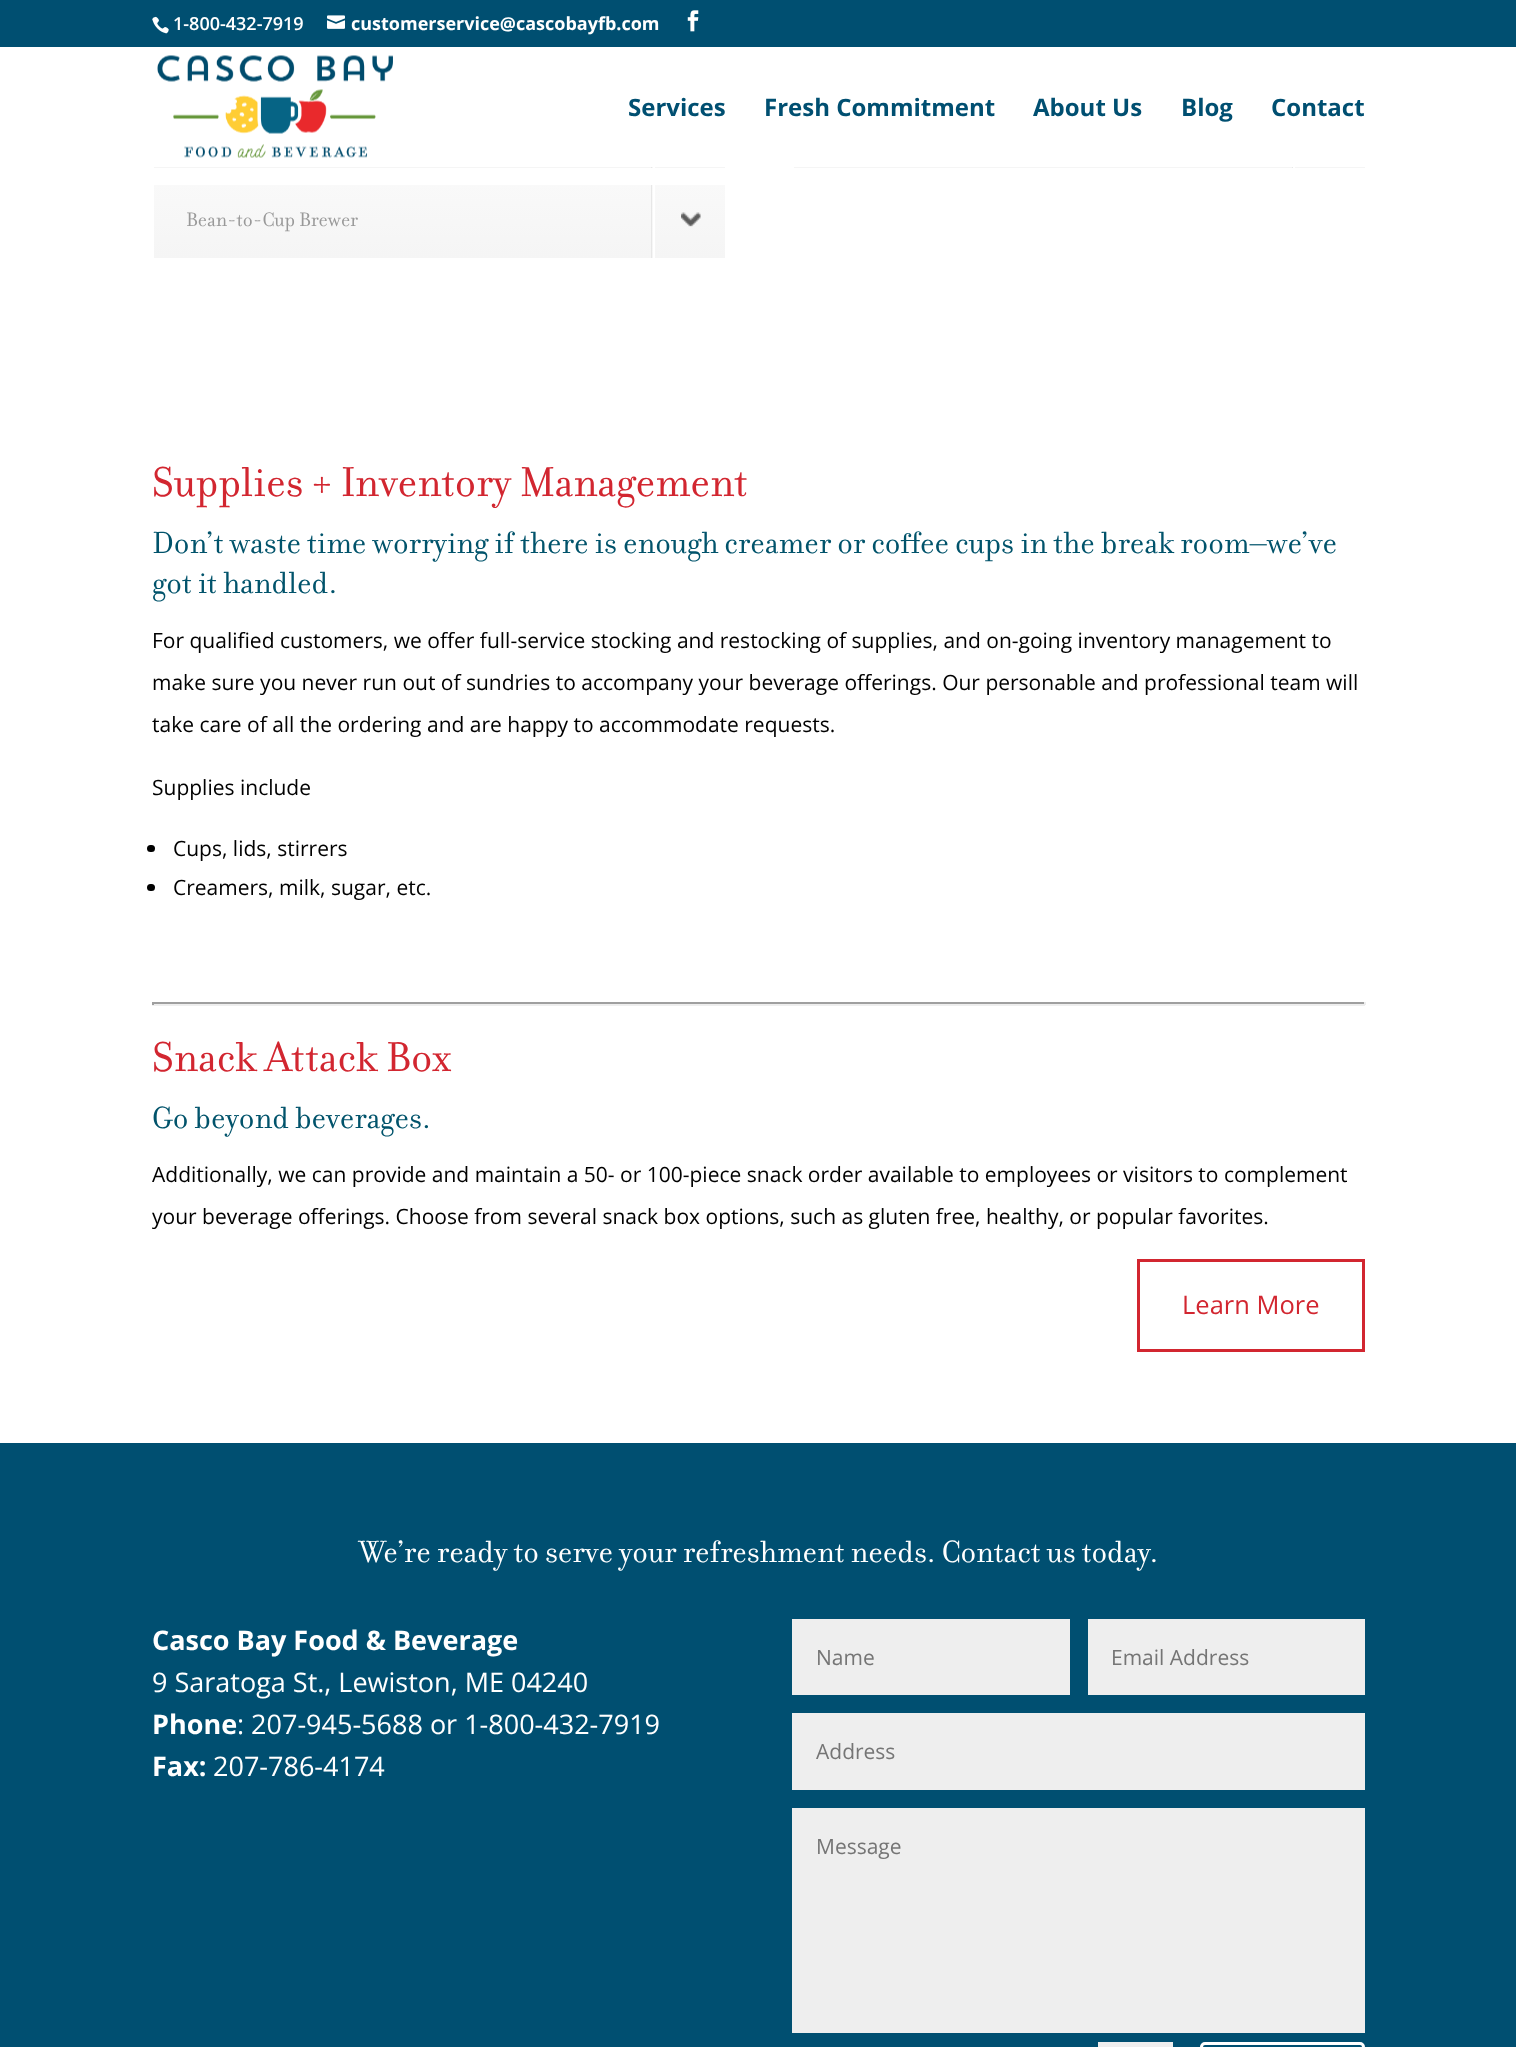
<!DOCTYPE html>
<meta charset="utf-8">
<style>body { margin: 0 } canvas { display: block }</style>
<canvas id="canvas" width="1516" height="2047"></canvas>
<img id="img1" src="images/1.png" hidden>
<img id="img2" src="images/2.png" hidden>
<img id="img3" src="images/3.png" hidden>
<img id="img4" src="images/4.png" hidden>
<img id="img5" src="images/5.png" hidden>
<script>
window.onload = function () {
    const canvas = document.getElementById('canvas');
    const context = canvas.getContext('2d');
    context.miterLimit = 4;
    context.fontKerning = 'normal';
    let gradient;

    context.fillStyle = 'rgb(255, 255, 255)';
    context.fillRect(0, 0, 1516, 2047);
    context.fillStyle = 'rgb(0, 79, 113)';
    context.fillRect(0, 0, 1516, 47);
    context.drawImage(document.getElementById('img1'), 152, 16, 17, 18);
    context.drawImage(document.getElementById('img2'), 327, 15, 18, 14);
    context.drawImage(document.getElementById('img3'), 687, 10, 12, 22);
    context.drawImage(document.getElementById('img4'), 157, 55, 236, 103);
    gradient = context.createLinearGradient(1079, 94, 1079, 168);
    gradient.addColorStop(0, 'rgb(249, 249, 249)');
    gradient.addColorStop(1, 'rgb(245, 245, 245)');
    context.fillStyle = gradient;
    context.fillRect(794, 167, 571, 1);
    context.fillStyle = 'rgb(231, 231, 231)';
    context.fillRect(1292, 167, 1, 1);
    context.fillStyle = 'rgb(255, 255, 255)';
    context.fillRect(1293, 167, 2, 1);
    gradient = context.createLinearGradient(439, 94, 439, 168);
    gradient.addColorStop(0, 'rgb(249, 249, 249)');
    gradient.addColorStop(1, 'rgb(245, 245, 245)');
    context.fillStyle = gradient;
    context.fillRect(154, 167, 571, 1);
    context.fillStyle = 'rgb(231, 231, 231)';
    context.fillRect(651, 167, 1, 1);
    context.fillStyle = 'rgb(255, 255, 255)';
    context.fillRect(653, 167, 2, 1);
    gradient = context.createLinearGradient(439, 184, 439, 258);
    gradient.addColorStop(0, 'rgb(249, 249, 249)');
    gradient.addColorStop(1, 'rgb(245, 245, 245)');
    context.fillStyle = gradient;
    context.fillRect(154, 185, 571, 73);
    context.fillStyle = 'rgb(231, 231, 231)';
    context.fillRect(651, 185, 1, 73);
    context.fillStyle = 'rgb(255, 255, 255)';
    context.fillRect(653, 185, 2, 73);
    context.drawImage(document.getElementById('img5'), 681, 212, 20, 15);
    context.fillStyle = 'rgb(0, 0, 0)';
    context.beginPath();
    context.roundRect(147, 845, 8, 7, 3.5);
    context.fill();
    context.beginPath();
    context.roundRect(147, 884, 8, 7, 3.5);
    context.fill();
    context.fillStyle = 'rgb(159, 159, 159)';
    context.fillRect(152, 1002, 1213, 2);
    context.fillStyle = 'rgb(238, 238, 238)';
    context.fillRect(1364, 1002, 2, 3);
    context.fillRect(152, 1004, 1213, 2);
    context.fillStyle = 'rgb(159, 159, 159)';
    context.fillRect(152, 1002, 2, 3);
    context.strokeStyle = 'rgb(210, 38, 48)';
    context.lineWidth = 3;
    context.strokeRect(1138.5, 1260.5, 225, 90);
    context.fillStyle = 'rgb(0, 79, 113)';
    context.fillRect(0, 1443, 1516, 604);
    context.fillStyle = 'rgb(238, 238, 238)';
    context.fillRect(792, 1619, 278, 76);
    context.fillRect(1088, 1619, 277, 76);
    context.fillRect(792, 1713, 573, 77);
    context.fillRect(792, 1808, 573, 225);
    context.fillRect(1098, 2042, 75, 5);
    context.beginPath();
    context.roundRect(1201.5, 2043.5, 162, 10, 3.5);
    context.strokeStyle = 'rgb(255, 255, 255)';
    context.stroke();
    context.font = '600 18px Open Sans';
    context.fillStyle = 'rgb(255, 255, 255)';
    context.fillText('1-800-432-7919', 173, 30);
    context.font = 'bold 18px Open Sans';
    context.fillText('customerservice@cascobayfb.com', 351, 30);
    context.font = 'bold 24px Open Sans';
    context.fillStyle = 'rgb(0, 79, 113)';
    context.fillText('Services', 628, 116);
    context.fillText('Fresh Commitment', 764, 116);
    context.fillText('About Us', 1033, 116);
    context.fillText('Blog', 1181, 116);
    context.fillText('Contact', 1271, 116);
    context.font = '21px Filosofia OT';
    context.fillStyle = 'rgb(153, 153, 153)';
    context.fillText('Bean-to-Cup Brewer', 186, 226);
    context.font = '45px Filosofia OT';
    context.fillStyle = 'rgb(210, 38, 48)';
    context.fillText('Supplies + Inventory Management', 152, 496);
    context.font = '33px Filosofia OT';
    context.fillStyle = 'rgb(1, 83, 107)';
    context.fillText('Don’t waste time worrying if there is enough creamer or coffee cups in the break room–we’ve', 152, 553);
    context.fillText('got it handled.', 152, 593);
    context.font = '21px Open Sans';
    context.fillStyle = 'rgb(0, 0, 0)';
    context.fillText('For qualified customers, we offer full-service stocking and restocking of supplies, and on-going inventory management to', 152, 648);
    context.fillText('make sure you never run out of sundries to accompany your beverage offerings. Our personable and professional team will', 152, 690);
    context.fillText('take care of all the ordering and are happy to accommodate requests.', 152, 732);
    context.fillText('Supplies include', 152, 795);
    context.fillText('Cups, lids, stirrers', 173, 856);
    context.fillText('Creamers, milk, sugar, etc.', 173, 895);
    context.font = '45px Filosofia OT';
    context.fillStyle = 'rgb(210, 38, 48)';
    context.fillText('Snack Attack Box', 152, 1071);
    context.font = '33px Filosofia OT';
    context.fillStyle = 'rgb(1, 83, 107)';
    context.fillText('Go beyond beverages.', 152, 1128);
    context.font = '21px Open Sans';
    context.fillStyle = 'rgb(0, 0, 0)';
    context.fillText('Additionally, we can provide and maintain a 50- or 100-piece snack order available to employees or visitors to complement', 152, 1182);
    context.fillText('your beverage offerings. Choose from several snack box options, such as gluten free, healthy, or popular favorites.', 152, 1224);
    context.font = '25.5px Open Sans';
    context.fillStyle = 'rgb(210, 38, 48)';
    context.fillText('Learn More', 1182, 1314);
    context.font = '33px Filosofia OT';
    context.fillStyle = 'rgb(255, 255, 255)';
    context.fillText('We’re ready to serve your refreshment needs. Contact us today.', 359, 1562);
    context.font = 'bold 27px Open Sans';
    context.fillText('Casco Bay Food & Beverage', 152, 1650);
    context.font = '27px Open Sans';
    context.fillText('9 Saratoga St., Lewiston, ME 04240', 152, 1692);
    context.font = 'bold 27px Open Sans';
    context.fillText('Phone', 152, 1734);
    context.font = '27px Open Sans';
    context.fillText(': 207-945-5688 or 1-800-432-7919', 237, 1734);
    context.font = 'bold 27px Open Sans';
    context.fillText('Fax:', 152, 1776);
    context.font = '27px Open Sans';
    context.fillText('207-786-4174', 213, 1776);
    context.font = '21px Open Sans';
    context.fillStyle = 'rgb(117, 117, 117)';
    context.fillText('Name', 816, 1665);
    context.fillText('Email Address', 1111, 1665);
    context.fillText('Address', 816, 1759);
    context.fillText('Message', 816, 1854);
};
</script>
